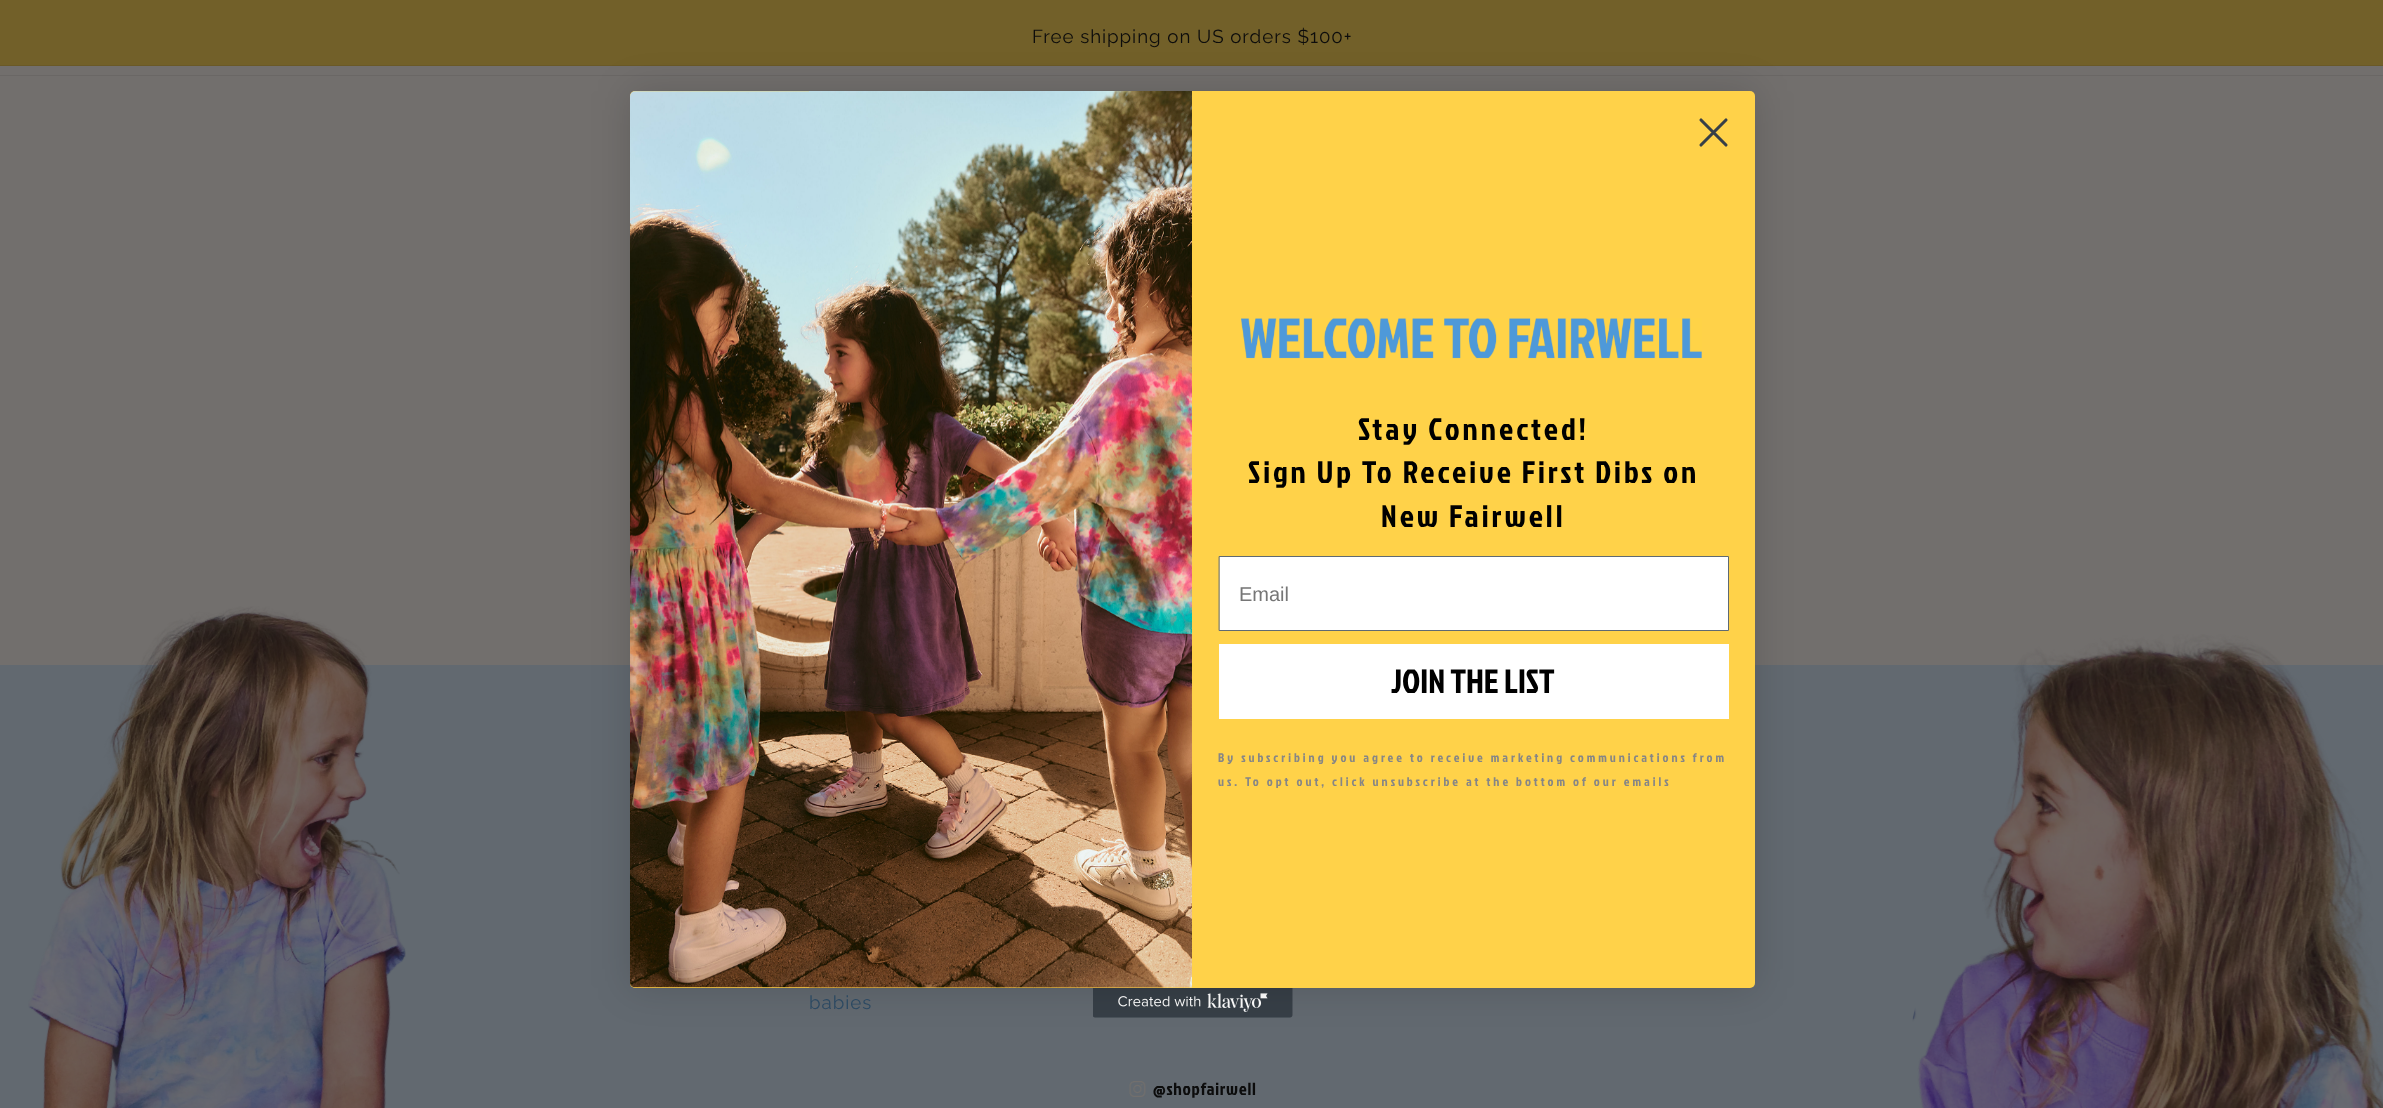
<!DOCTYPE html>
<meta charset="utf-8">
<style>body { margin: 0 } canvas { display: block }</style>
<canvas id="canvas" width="2383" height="1108"></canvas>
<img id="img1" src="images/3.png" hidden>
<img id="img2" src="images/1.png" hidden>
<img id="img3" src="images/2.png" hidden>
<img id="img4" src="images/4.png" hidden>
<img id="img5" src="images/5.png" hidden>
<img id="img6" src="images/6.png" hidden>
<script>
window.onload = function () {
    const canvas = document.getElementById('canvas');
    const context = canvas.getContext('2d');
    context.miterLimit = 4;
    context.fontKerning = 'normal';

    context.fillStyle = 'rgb(114, 111, 109)';
    context.fillRect(0, 0, 2383, 1108);
    context.fillStyle = 'rgb(114, 96, 41)';
    context.fillRect(0, 0, 2383, 65);
    context.fillStyle = 'rgb(106, 89, 39)';
    context.fillRect(0, 65, 2383, 1);
    context.fillStyle = 'rgb(106, 103, 101)';
    context.fillRect(0, 75, 2383, 1);
    context.fillStyle = 'rgb(98, 105, 112)';
    context.fillRect(0, 665, 2383, 443);
    context.drawImage(document.getElementById('img1'), 1093, 988, 200, 30);
    context.fillStyle = 'rgba(0, 0, 0, 0.15)';
    context.filter = 'blur(19px)';
    context.beginPath();
    context.roundRect(630, 91, 1125, 897, 5);
    context.fill();
    context.filter = 'none';
    context.fillStyle = 'rgb(255, 210, 73)';
    context.beginPath();
    context.roundRect(630, 91, 1125, 897, 5);
    context.fill();
    context.beginPath();
    context.moveTo(1701, 120);
    context.lineTo(1726, 145);
    context.moveTo(1701, 145);
    context.lineTo(1726, 120);
    context.closePath();
    context.strokeStyle = 'rgb(55, 63, 71)';
    context.lineWidth = 3.1;
    context.lineCap = 'round';
    context.lineJoin = 'round';
    context.stroke();
    context.drawImage(document.getElementById('img2'), 630, 91, 562, 897);
    context.drawImage(document.getElementById('img3'), 1241, 318, 461, 41);
    context.fillStyle = 'rgb(255, 255, 255)';
    context.beginPath();
    context.rect(1219.5, 556.5, 509, 74);
    context.fill();
    context.strokeStyle = 'rgb(96, 106, 114)';
    context.lineWidth = 1;
    context.lineJoin = 'miter';
    context.stroke();
    context.fillRect(1219, 644, 510, 75);
    context.drawImage(document.getElementById('img4'), 28, 606, 378, 502);
    context.drawImage(document.getElementById('img5'), 1129, 1081, 17, 16);
    context.drawImage(document.getElementById('img6'), 1912, 634, 471, 474);
    context.letterSpacing = '0.95px';
    context.font = '18.75px Raleway';
    context.fillStyle = 'rgb(12, 12, 12)';
    context.fillText('Free shipping on US orders $100+', 1032, 43);
    context.letterSpacing = '3px';
    context.font = '31.25px Jockey One';
    context.fillStyle = 'rgb(0, 0, 0)';
    context.fillText('Stay Connected!', 1358, 440);
    context.fillText('Sign Up To Receive First Dibs on', 1248, 483);
    context.fillText('New Fairwell', 1381, 527);
    context.letterSpacing = '0px';
    context.font = '20px Liberation Sans';
    context.fillStyle = 'rgb(118, 118, 118)';
    context.fillText('Email', 1239, 601);
    context.font = '33.75px Jockey One';
    context.fillStyle = 'rgb(0, 0, 0)';
    context.fillText('JOIN THE LIST', 1391, 693);
    context.letterSpacing = '3px';
    context.font = '12.5px Jockey One';
    context.fillStyle = 'rgb(134, 134, 134)';
    context.fillText('By subscribing you agree to receive marketing communications from', 1218, 762);
    context.fillText('us. To opt out, click unsubscribe at the bottom of our emails', 1218, 786);
    context.letterSpacing = '0.95px';
    context.font = '18.75px Raleway';
    context.fillStyle = 'rgb(44, 73, 98)';
    context.fillText('babies', 809, 1009);
    context.letterSpacing = '0.75px';
    context.font = '17.5px Jockey One';
    context.fillStyle = 'rgb(12, 12, 12)';
    context.fillText('@shopfairwell', 1153, 1095);
};
</script>
